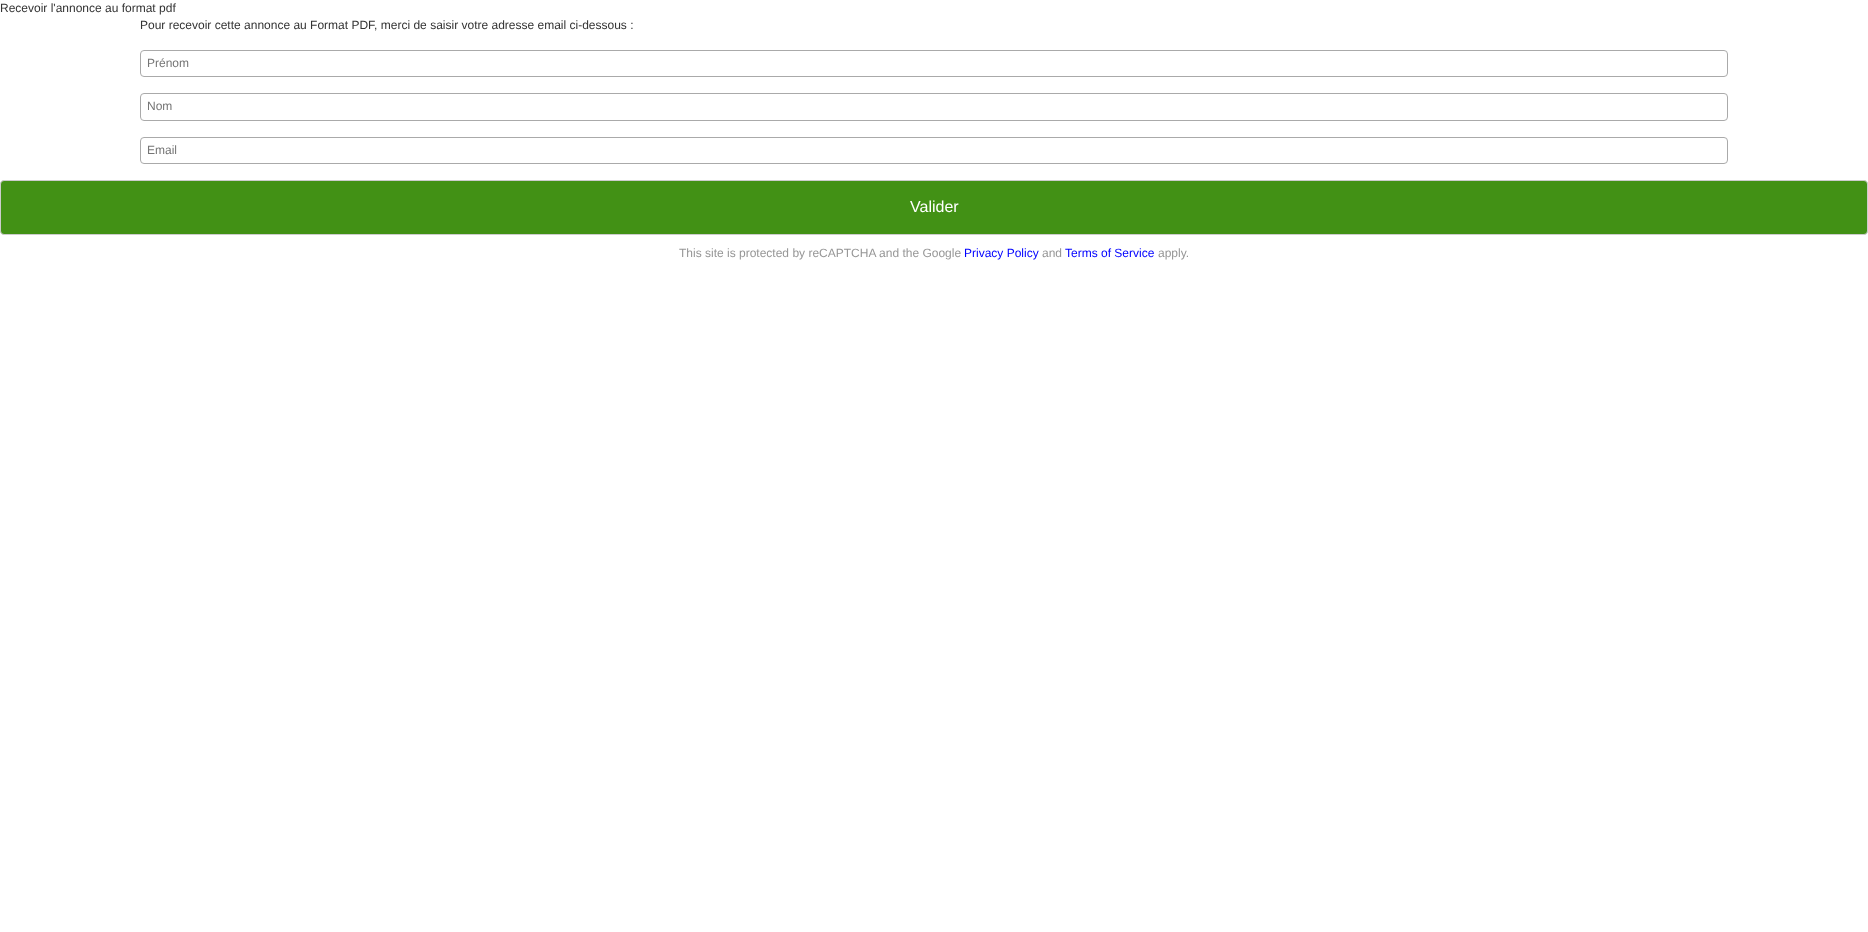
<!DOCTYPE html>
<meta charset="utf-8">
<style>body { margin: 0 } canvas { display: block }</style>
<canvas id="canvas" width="1868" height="932"></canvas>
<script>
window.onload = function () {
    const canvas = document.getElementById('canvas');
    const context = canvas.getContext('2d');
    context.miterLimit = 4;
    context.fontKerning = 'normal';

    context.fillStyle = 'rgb(255, 255, 255)';
    context.fillRect(0, 0, 1868, 932);
    context.beginPath();
    context.roundRect(140.5, 50.5, 1587, 26, 3.5);
    context.strokeStyle = 'rgb(170, 170, 170)';
    context.stroke();
    context.beginPath();
    context.roundRect(140.5, 93.5, 1587, 27, 3.5);
    context.stroke();
    context.beginPath();
    context.roundRect(140.5, 137.5, 1587, 26, 3.5);
    context.stroke();
    context.fillStyle = 'rgb(66, 145, 21)';
    context.beginPath();
    context.roundRect(0.5, 180.5, 1867, 54, 3.5);
    context.fill();
    context.strokeStyle = 'rgb(204, 204, 204)';
    context.stroke();
    context.font = '12px Liberation Sans';
    context.fillStyle = 'rgb(51, 51, 51)';
    context.fillText('Recevoir l\'annonce au format pdf', 0, 12);
    context.fillText('Pour recevoir cette annonce au Format PDF, merci de saisir votre adresse email ci-dessous :', 140, 29);
    context.fillStyle = 'rgb(117, 117, 117)';
    context.fillText('Prénom', 147, 67);
    context.fillText('Nom', 147, 110);
    context.fillText('Email', 147, 154);
    context.font = '16px Liberation Sans';
    context.fillStyle = 'rgb(255, 255, 255)';
    context.fillText('Valider', 910, 212);
    context.font = '12px Liberation Sans';
    context.fillStyle = 'rgb(150, 150, 150)';
    context.fillText('This site is protected by reCAPTCHA and the Google', 679, 257);
    context.fillStyle = 'rgb(0, 0, 255)';
    context.fillText('Privacy Policy', 964, 257);
    context.fillStyle = 'rgb(150, 150, 150)';
    context.fillText('and', 1042, 257);
    context.fillStyle = 'rgb(0, 0, 255)';
    context.fillText('Terms of Service', 1065, 257);
    context.fillStyle = 'rgb(150, 150, 150)';
    context.fillText('apply.', 1158, 257);
};
</script>
